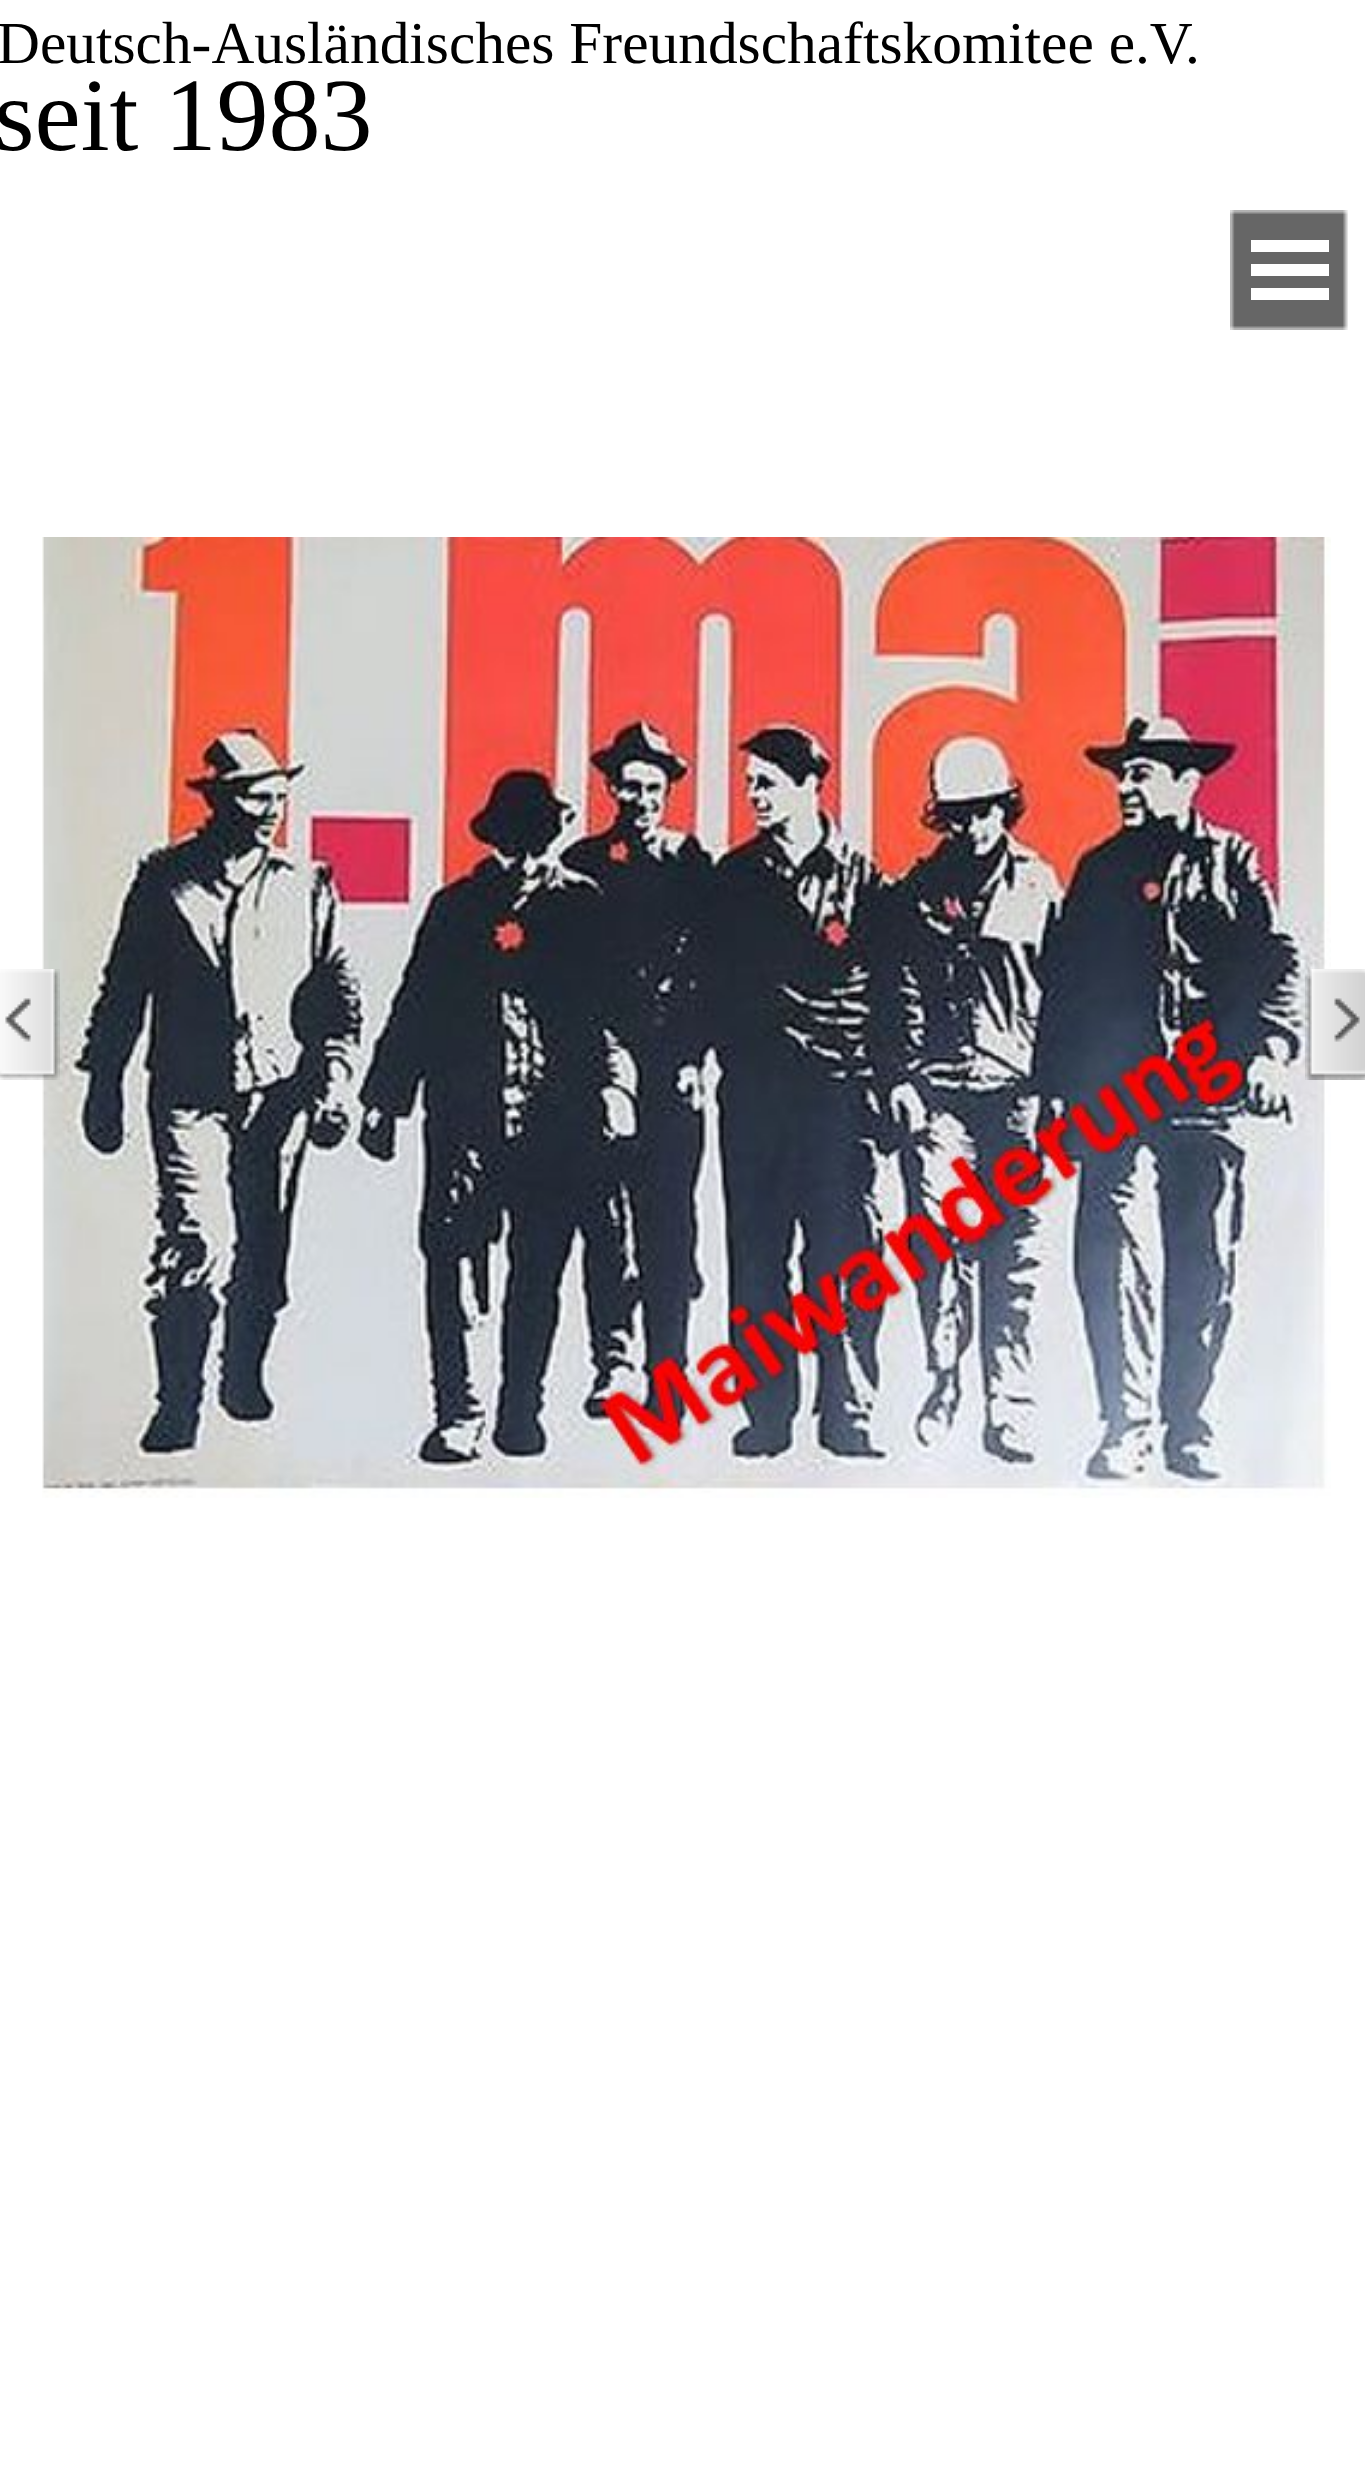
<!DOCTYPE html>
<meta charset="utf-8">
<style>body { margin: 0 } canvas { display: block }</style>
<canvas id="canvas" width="1365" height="2473"></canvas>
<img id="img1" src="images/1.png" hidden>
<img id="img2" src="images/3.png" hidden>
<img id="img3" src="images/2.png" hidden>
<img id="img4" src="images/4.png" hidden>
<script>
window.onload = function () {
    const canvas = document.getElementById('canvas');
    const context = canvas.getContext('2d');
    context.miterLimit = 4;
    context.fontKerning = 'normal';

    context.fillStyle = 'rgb(255, 255, 255)';
    context.fillRect(0, 0, 1365, 2473);
    context.drawImage(document.getElementById('img1'), 1230, 210, 118, 120);
    context.fillRect(1251, 240, 78, 12);
    context.fillRect(1251, 264, 78, 12);
    context.fillRect(1251, 288, 78, 12);
    context.drawImage(document.getElementById('img2'), 42, 537, 1289, 961);
    context.drawImage(document.getElementById('img3'), 0, 969, 60, 111);
    context.drawImage(document.getElementById('img4'), 1305, 969, 60, 111);
    context.font = '59.4px Liberation Serif';
    context.fillStyle = 'rgb(0, 0, 0)';
    context.fillText('Deutsch-Ausländisches Freundschaftskomitee e.V.', -3, 63);
    context.font = '104px Liberation Serif';
    context.fillText('seit 1983', -6, 150);
};
</script>
